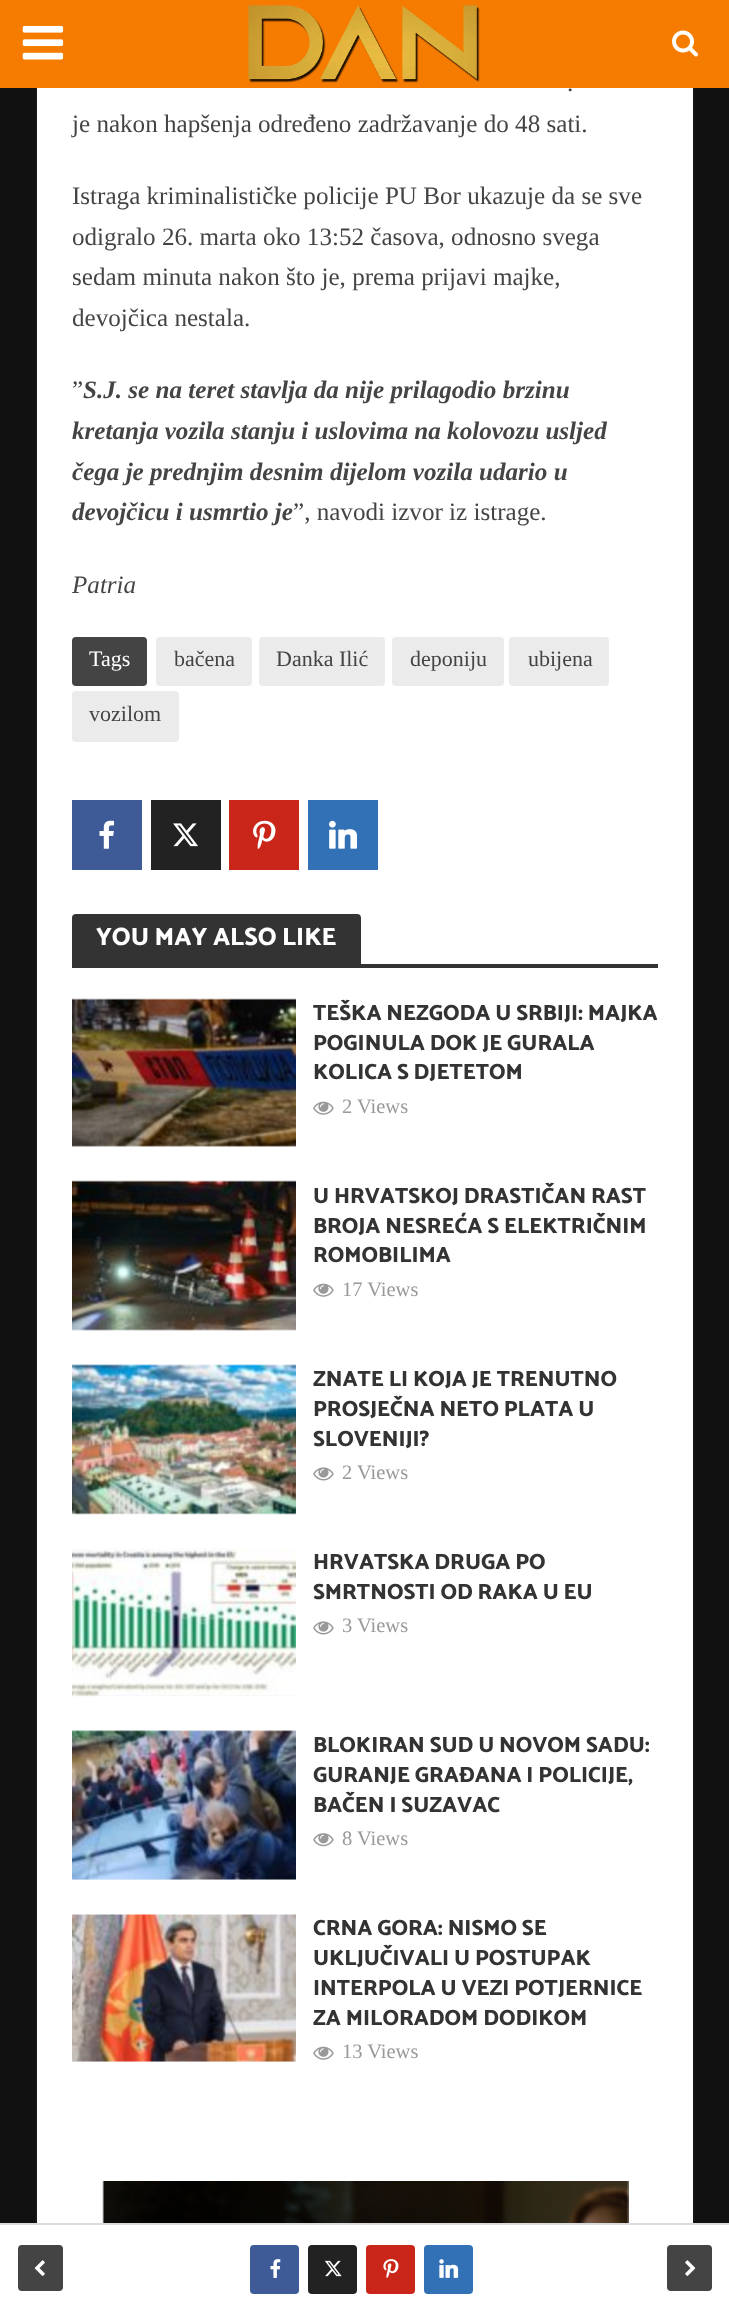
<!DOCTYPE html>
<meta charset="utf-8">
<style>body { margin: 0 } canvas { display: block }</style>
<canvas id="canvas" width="729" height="2310"></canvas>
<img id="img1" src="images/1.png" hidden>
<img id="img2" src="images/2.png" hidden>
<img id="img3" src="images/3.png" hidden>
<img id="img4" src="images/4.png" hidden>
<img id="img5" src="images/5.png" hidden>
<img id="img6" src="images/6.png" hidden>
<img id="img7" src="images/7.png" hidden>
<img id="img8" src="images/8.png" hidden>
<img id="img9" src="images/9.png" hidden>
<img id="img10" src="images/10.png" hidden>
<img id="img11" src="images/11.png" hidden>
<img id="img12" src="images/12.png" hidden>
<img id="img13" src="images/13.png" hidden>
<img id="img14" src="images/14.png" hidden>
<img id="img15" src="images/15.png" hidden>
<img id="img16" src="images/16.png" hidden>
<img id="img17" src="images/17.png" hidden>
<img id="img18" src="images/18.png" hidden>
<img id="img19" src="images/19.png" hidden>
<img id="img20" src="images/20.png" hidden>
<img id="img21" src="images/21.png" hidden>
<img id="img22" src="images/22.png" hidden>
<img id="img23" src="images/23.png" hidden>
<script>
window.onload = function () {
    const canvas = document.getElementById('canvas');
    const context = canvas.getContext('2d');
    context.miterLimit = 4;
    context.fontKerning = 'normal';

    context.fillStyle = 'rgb(17, 17, 17)';
    context.fillRect(0, 0, 729, 2310);
    context.strokeStyle = 'rgb(22, 22, 22)';
    context.lineWidth = 2;
    context.strokeRect(36, -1, 658, 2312);
    context.fillStyle = 'rgb(245, 124, 0)';
    context.fillRect(0, 0, 729, 88);
    context.drawImage(document.getElementById('img1'), 22, 25, 42, 35);
    context.drawImage(document.getElementById('img2'), 248, 5, 232, 78);
    context.drawImage(document.getElementById('img3'), 672, 30, 26, 27);
    context.fillStyle = 'rgb(255, 255, 255)';
    context.fillRect(37, 88, 656, 2135);
    context.fillStyle = 'rgb(68, 68, 68)';
    context.beginPath();
    context.roundRect(72, 637, 75, 49, 4);
    context.fill();
    context.fillStyle = 'rgb(235, 235, 235)';
    context.beginPath();
    context.roundRect(156, 637, 96, 49, 4);
    context.fill();
    context.beginPath();
    context.roundRect(259, 637, 126, 49, 4);
    context.fill();
    context.beginPath();
    context.roundRect(392, 637, 112, 49, 4);
    context.fill();
    context.beginPath();
    context.roundRect(509, 637, 100, 49, 4);
    context.fill();
    context.beginPath();
    context.roundRect(72, 691, 107, 51, 4);
    context.fill();
    context.fillStyle = 'rgb(62, 91, 152)';
    context.fillRect(72, 800, 70, 70);
    context.drawImage(document.getElementById('img4'), 99, 820, 16, 29);
    context.fillStyle = 'rgb(34, 34, 34)';
    context.fillRect(151, 800, 70, 70);
    context.drawImage(document.getElementById('img5'), 173, 823, 25, 24);
    context.fillStyle = 'rgb(201, 38, 25)';
    context.fillRect(229, 800, 70, 70);
    context.drawImage(document.getElementById('img6'), 253, 820, 23, 29);
    context.fillStyle = 'rgb(51, 113, 183)';
    context.fillRect(308, 800, 70, 70);
    context.drawImage(document.getElementById('img7'), 329, 820, 28, 29);
    context.fillStyle = 'rgb(51, 51, 51)';
    context.beginPath();
    context.roundRect(72, 914, 289, 50, [4, 4, 0, 0]);
    context.fill();
    context.fillRect(72, 964, 586, 4);
    context.fillStyle = 'rgb(242, 242, 242)';
    context.fillRect(72, 999, 224, 147);
    context.drawImage(document.getElementById('img8'), 72, 998, 224, 149);
    context.drawImage(document.getElementById('img9'), 313, 1101, 21, 14);
    context.fillRect(72, 1181, 224, 149);
    context.drawImage(document.getElementById('img10'), 72, 1180, 224, 151);
    context.drawImage(document.getElementById('img9'), 313, 1283, 21, 14);
    context.fillRect(72, 1365, 224, 149);
    context.drawImage(document.getElementById('img11'), 72, 1364, 224, 151);
    context.drawImage(document.getElementById('img12'), 313, 1467, 21, 14);
    context.fillRect(72, 1549, 224, 147);
    context.drawImage(document.getElementById('img13'), 72, 1548, 224, 149);
    context.drawImage(document.getElementById('img12'), 313, 1621, 21, 14);
    context.fillRect(72, 1731, 224, 149);
    context.drawImage(document.getElementById('img14'), 72, 1730, 224, 150);
    context.drawImage(document.getElementById('img15'), 313, 1833, 21, 14);
    context.fillRect(72, 2061, 224, 1);
    context.drawImage(document.getElementById('img16'), 72, 1914, 224, 148);
    context.drawImage(document.getElementById('img9'), 313, 2046, 21, 14);
    context.drawImage(document.getElementById('img17'), 102, 2181, 527, 42);
    context.fillStyle = 'rgb(255, 255, 255)';
    context.fillRect(0, 2225, 729, 85);
    context.fillStyle = 'rgb(218, 218, 218)';
    context.fillRect(0, 2223, 729, 2);
    context.fillStyle = 'rgb(68, 68, 68)';
    context.beginPath();
    context.roundRect(18, 2245, 45, 46, 4);
    context.fill();
    context.drawImage(document.getElementById('img18'), 34, 2260, 11, 16);
    context.fillStyle = 'rgb(62, 91, 152)';
    context.beginPath();
    context.roundRect(250, 2245, 49, 49, 4);
    context.fill();
    context.drawImage(document.getElementById('img19'), 270, 2259, 11, 19);
    context.fillStyle = 'rgb(34, 34, 34)';
    context.beginPath();
    context.roundRect(308, 2245, 49, 49, 4);
    context.fill();
    context.drawImage(document.getElementById('img20'), 324, 2260, 18, 17);
    context.fillStyle = 'rgb(201, 38, 25)';
    context.beginPath();
    context.roundRect(366, 2245, 49, 49, 4);
    context.fill();
    context.drawImage(document.getElementById('img21'), 383, 2259, 16, 19);
    context.fillStyle = 'rgb(51, 113, 183)';
    context.beginPath();
    context.roundRect(424, 2245, 49, 49, 4);
    context.fill();
    context.drawImage(document.getElementById('img22'), 439, 2259, 20, 19);
    context.fillStyle = 'rgb(68, 68, 68)';
    context.beginPath();
    context.roundRect(667, 2245, 45, 46, 4);
    context.fill();
    context.drawImage(document.getElementById('img23'), 685, 2260, 11, 16);
    context.font = '25.1px Liberation Serif';
    context.fillText('.', 567, 91);
    context.fillText('je nakon hapšenja određeno zadržavanje do 48 sati.', 72, 132);
    context.fillText('Istraga kriminalističke policije PU Bor ukazuje da se sve', 72, 204);
    context.fillText('odigralo 26. marta oko 13:52 časova, odnosno svega', 72, 245);
    context.fillText('sedam minuta nakon što je, prema prijavi majke,', 72, 285);
    context.fillText('devojčica nestala.', 72, 326);
    context.fillText('”', 72, 398);
    context.font = 'italic bold 25.1px Liberation Serif';
    context.fillText('S.J. se na teret stavlja da nije prilagodio brzinu', 83, 398);
    context.fillText('kretanja vozila stanju i uslovima na kolovozu usljed', 72, 439);
    context.fillText('čega je prednjim desnim dijelom vozila udario u', 72, 480);
    context.fillText('devojčicu i usmrtio je', 72, 520);
    context.font = '25.1px Liberation Serif';
    context.fillText('”, navodi izvor iz istrage.', 293, 520);
    context.font = 'italic 25.1px Liberation Serif';
    context.fillText('Patria', 72, 593);
    context.font = '22px Liberation Serif';
    context.fillStyle = 'rgb(255, 255, 255)';
    context.fillText('Tags', 89, 666);
    context.fillStyle = 'rgb(68, 68, 68)';
    context.fillText('bačena', 174, 666);
    context.fillText('Danka Ilić', 276, 666);
    context.fillText('deponiju', 410, 666);
    context.fillText('ubijena', 528, 666);
    context.fillText('vozilom', 89, 721);
    context.font = '800 25.1px Catamaran';
    context.fillStyle = 'rgb(255, 255, 255)';
    context.fillText('YOU MAY ALSO LIKE', 96, 945);
    context.font = '800 22px Catamaran';
    context.fillStyle = 'rgb(51, 51, 51)';
    context.fillText('TEŠKA NEZGODA U SRBIJI: MAJKA', 313, 1020);
    context.fillText('POGINULA DOK JE GURALA', 313, 1050);
    context.fillText('KOLICA S DJETETOM', 313, 1079);
    context.font = '20.5px Liberation Serif';
    context.fillStyle = 'rgb(153, 153, 153)';
    context.fillText('2 Views', 342, 1113);
    context.font = '800 22px Catamaran';
    context.fillStyle = 'rgb(51, 51, 51)';
    context.fillText('U HRVATSKOJ DRASTIČAN RAST', 313, 1203);
    context.fillText('BROJA NESREĆA S ELEKTRIČNIM', 313, 1233);
    context.fillText('ROMOBILIMA', 313, 1262);
    context.font = '20.5px Liberation Serif';
    context.fillStyle = 'rgb(153, 153, 153)';
    context.fillText('17 Views', 342, 1296);
    context.font = '800 22px Catamaran';
    context.fillStyle = 'rgb(51, 51, 51)';
    context.fillText('ZNATE LI KOJA JE TRENUTNO', 313, 1386);
    context.fillText('PROSJEČNA NETO PLATA U', 313, 1416);
    context.fillText('SLOVENIJI?', 313, 1446);
    context.font = '20.5px Liberation Serif';
    context.fillStyle = 'rgb(153, 153, 153)';
    context.fillText('2 Views', 342, 1479);
    context.font = '800 22px Catamaran';
    context.fillStyle = 'rgb(51, 51, 51)';
    context.fillText('HRVATSKA DRUGA PO', 313, 1569);
    context.fillText('SMRTNOSTI OD RAKA U EU', 313, 1599);
    context.font = '20.5px Liberation Serif';
    context.fillStyle = 'rgb(153, 153, 153)';
    context.fillText('3 Views', 342, 1632);
    context.font = '800 22px Catamaran';
    context.fillStyle = 'rgb(51, 51, 51)';
    context.fillText('BLOKIRAN SUD U NOVOM SADU:', 313, 1752);
    context.fillText('GURANJE GRAĐANA I POLICIJE,', 313, 1782);
    context.fillText('BAČEN I SUZAVAC', 313, 1812);
    context.font = '20.5px Liberation Serif';
    context.fillStyle = 'rgb(153, 153, 153)';
    context.fillText('8 Views', 342, 1845);
    context.font = '800 22px Catamaran';
    context.fillStyle = 'rgb(51, 51, 51)';
    context.fillText('CRNA GORA: NISMO SE', 313, 1935);
    context.fillText('UKLJUČIVALI U POSTUPAK', 313, 1965);
    context.fillText('INTERPOLA U VEZI POTJERNICE', 313, 1995);
    context.fillText('ZA MILORADOM DODIKOM', 313, 2025);
    context.font = '20.5px Liberation Serif';
    context.fillStyle = 'rgb(153, 153, 153)';
    context.fillText('13 Views', 342, 2058);
};
</script>
